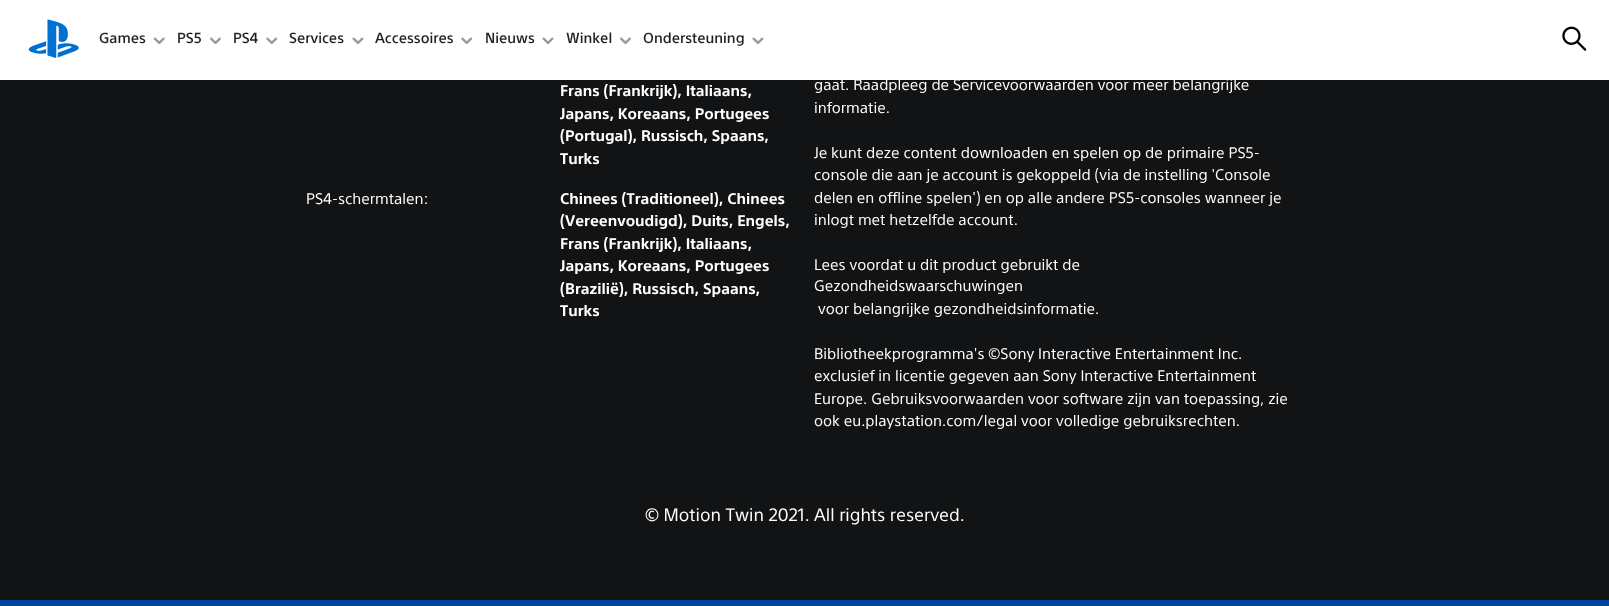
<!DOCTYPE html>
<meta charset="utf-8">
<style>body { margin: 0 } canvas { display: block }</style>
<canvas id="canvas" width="1609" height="606"></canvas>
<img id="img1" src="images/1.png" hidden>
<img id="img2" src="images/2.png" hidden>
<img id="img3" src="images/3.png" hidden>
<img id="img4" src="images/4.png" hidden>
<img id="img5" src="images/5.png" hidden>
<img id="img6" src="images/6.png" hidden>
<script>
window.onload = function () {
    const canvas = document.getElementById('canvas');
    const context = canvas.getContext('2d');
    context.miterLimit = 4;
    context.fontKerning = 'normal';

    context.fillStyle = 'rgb(0, 67, 156)';
    context.fillRect(0, 0, 1609, 606);
    context.fillStyle = 'rgb(255, 255, 255)';
    context.fillRect(0, 0, 1609, 80);
    context.drawImage(document.getElementById('img1'), 28, 19, 51, 40);
    context.drawImage(document.getElementById('img2'), 153, 37, 12, 8);
    context.drawImage(document.getElementById('img3'), 210, 37, 11, 8);
    context.drawImage(document.getElementById('img4'), 266, 37, 12, 8);
    context.drawImage(document.getElementById('img5'), 352, 37, 12, 7);
    context.drawImage(document.getElementById('img4'), 461, 37, 12, 8);
    context.drawImage(document.getElementById('img5'), 542, 37, 12, 7);
    context.drawImage(document.getElementById('img3'), 620, 37, 11, 8);
    context.drawImage(document.getElementById('img5'), 752, 37, 12, 7);
    context.drawImage(document.getElementById('img6'), 1562, 26, 25, 25);
    context.fillStyle = 'rgb(18, 19, 20)';
    context.fillRect(0, 80, 1609, 520);
    context.font = '500 14.25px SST';
    context.fillStyle = 'rgb(31, 31, 31)';
    context.fillText('Games', 99, 43);
    context.fillText('PS5', 177, 43);
    context.fillText('PS4', 233, 43);
    context.fillText('Services', 289, 43);
    context.fillText('Accessoires', 375, 43);
    context.fillText('Nieuws', 485, 43);
    context.fillText('Winkel', 566, 43);
    context.fillText('Ondersteuning', 643, 43);
    context.font = 'bold 15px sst';
    context.fillStyle = 'rgb(255, 255, 255)';
    context.fillText('Frans (Frankrijk), Italiaans,', 560, 96);
    context.fillText('Japans, Koreaans, Portugees', 560, 119);
    context.fillText('(Portugal), Russisch, Spaans,', 560, 141);
    context.fillText('Turks', 560, 164);
    context.font = '15px sst';
    context.fillText('PS4-schermtalen:', 306, 204);
    context.font = 'bold 15px sst';
    context.fillText('Chinees (Traditioneel), Chinees', 560, 204);
    context.fillText('(Vereenvoudigd), Duits, Engels,', 560, 226);
    context.fillText('Frans (Frankrijk), Italiaans,', 560, 249);
    context.fillText('Japans, Koreaans, Portugees', 560, 271);
    context.fillText('(Brazilië), Russisch, Spaans,', 560, 294);
    context.fillText('Turks', 560, 316);
    context.font = '15px sst';
    context.fillText('gaat. Raadpleeg de Servicevoorwaarden voor meer belangrijke', 814, 90);
    context.fillText('informatie.', 814, 113);
    context.fillText('Je kunt deze content downloaden en spelen op de primaire PS5-', 814, 158);
    context.fillText('console die aan je account is gekoppeld (via de instelling \'Console', 814, 180);
    context.fillText('delen en offline spelen\') en op alle andere PS5-consoles wanneer je', 814, 203);
    context.fillText('inlogt met hetzelfde account.', 814, 225);
    context.fillText('Lees voordat u dit product gebruikt de', 814, 270);
    context.fillText('Gezondheidswaarschuwingen', 814, 291);
    context.fillText('voor belangrijke gezondheidsinformatie.', 818, 314);
    context.fillText('Bibliotheekprogramma\'s ©Sony Interactive Entertainment Inc.', 814, 359);
    context.fillText('exclusief in licentie gegeven aan Sony Interactive Entertainment', 814, 381);
    context.fillText('Europe. Gebruiksvoorwaarden voor software zijn van toepassing, zie', 814, 404);
    context.fillText('ook eu.playstation.com/legal voor volledige gebruiksrechten.', 814, 426);
    context.font = '17.5px sst';
    context.fillText('© Motion Twin 2021. All rights reserved.', 645, 521);
};
</script>
